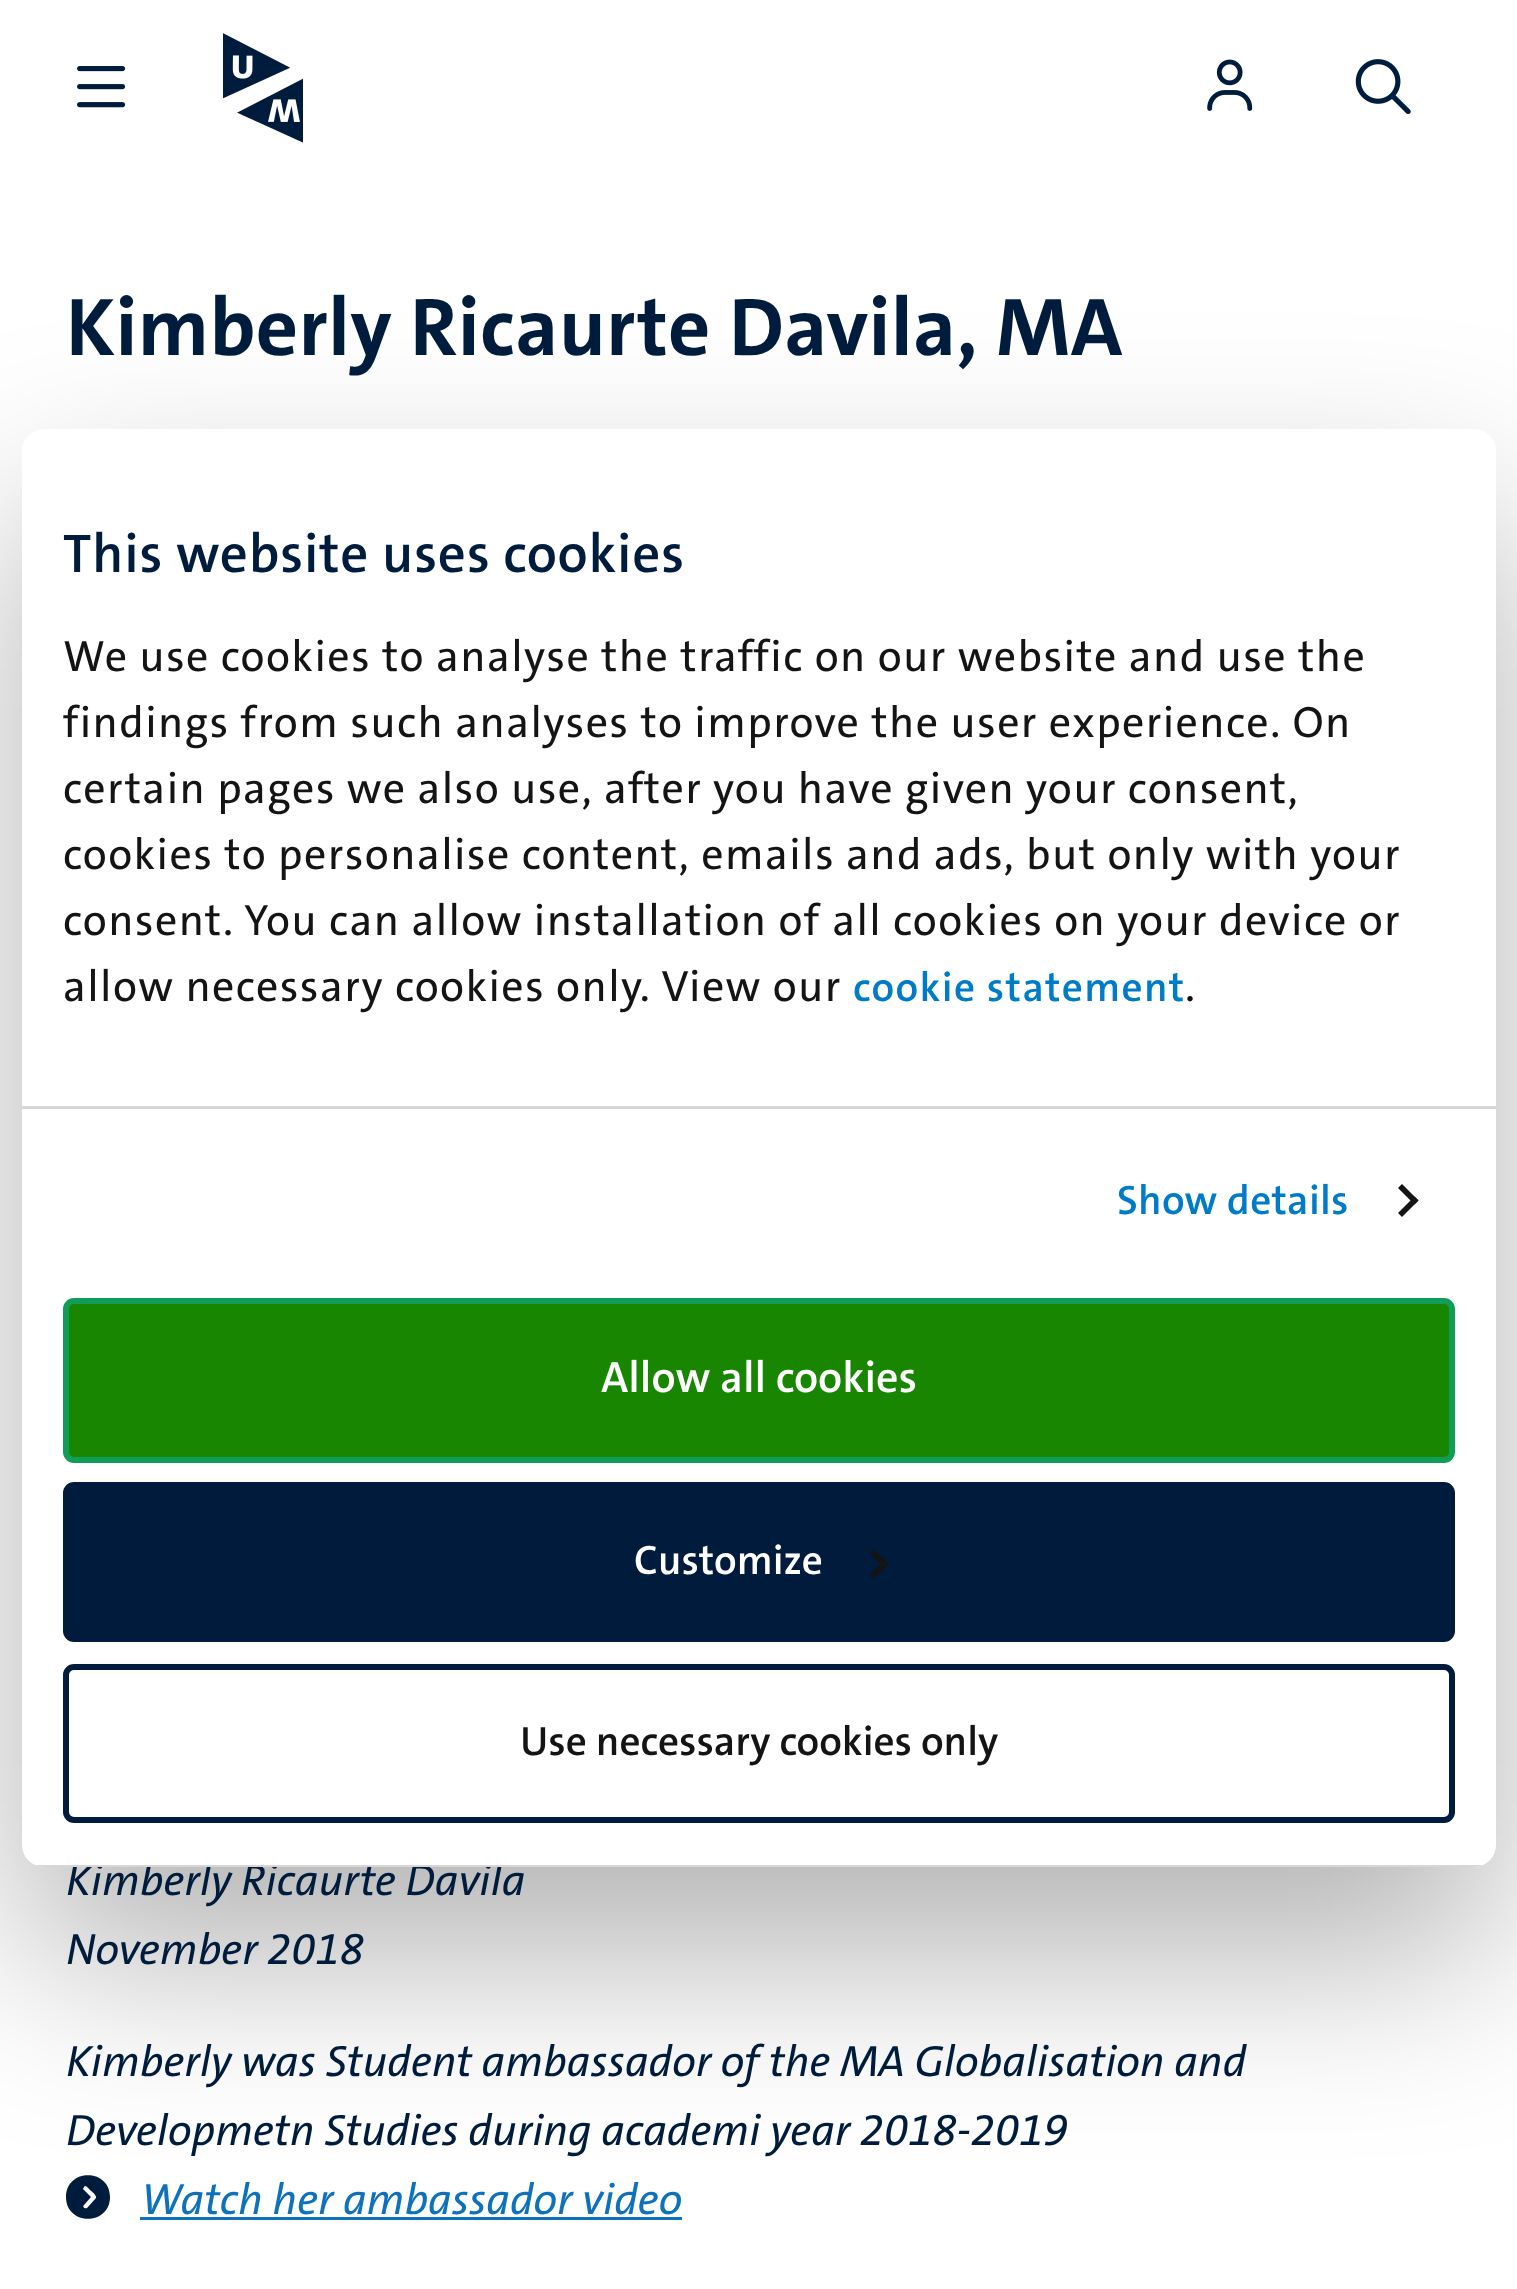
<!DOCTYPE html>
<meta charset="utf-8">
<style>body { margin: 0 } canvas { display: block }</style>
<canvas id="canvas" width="1517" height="2289"></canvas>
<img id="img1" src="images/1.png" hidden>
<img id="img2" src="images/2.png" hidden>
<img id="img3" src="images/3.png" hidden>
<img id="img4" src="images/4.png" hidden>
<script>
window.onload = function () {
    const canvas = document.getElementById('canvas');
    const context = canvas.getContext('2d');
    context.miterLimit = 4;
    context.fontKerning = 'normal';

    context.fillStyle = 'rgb(255, 255, 255)';
    context.fillRect(0, 0, 1517, 2289);
    context.drawImage(document.getElementById('img1'), 77, 66, 49, 42);
    context.drawImage(document.getElementById('img2'), 223, 33, 80, 110);
    context.drawImage(document.getElementById('img3'), 1207, 59, 46, 52);
    context.drawImage(document.getElementById('img4'), 1355, 59, 56, 56);
    context.fillStyle = 'rgb(0, 28, 61)';
    context.beginPath();
    context.moveTo(66, 2197);
    context.bezierCurveTo(66, 2226, 110, 2226, 110, 2197);
    context.bezierCurveTo(110, 2168, 66, 2168, 66, 2197);
    context.closePath();
    context.moveTo(87, 2208);
    context.bezierCurveTo(85, 2209, 82, 2207, 84, 2205);
    context.lineTo(91, 2197);
    context.lineTo(83, 2189);
    context.lineTo(84, 2187);
    context.bezierCurveTo(85, 2184, 89, 2189, 90, 2190);
    context.bezierCurveTo(91, 2191, 97, 2195, 96, 2198);
    context.closePath();
    context.fill();
    context.fillStyle = 'rgb(14, 113, 187)';
    context.fillRect(140, 2217, 542, 3);
    context.fillStyle = 'rgba(0, 0, 0, 0.3)';
    context.filter = 'blur(93.5px)';
    context.beginPath();
    context.roundRect(22, 517, 1474, 1438, 22);
    context.fill();
    context.filter = 'none';
    context.letterSpacing = '0.25px';
    context.font = 'bold 82.5px "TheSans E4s"';
    context.fillStyle = 'rgb(0, 28, 61)';
    context.fillText('Kimberly Ricaurte Davila, MA', 66, 355);
    context.letterSpacing = '0px';
    context.font = 'italic 500 44px "TheSans E4s"';
    context.fillText('Kimberly Ricaurte Davila', 66, 1895);
    context.font = 'italic 500 44px "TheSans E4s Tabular"';
    context.fillText('November 2018', 66, 1964);
    context.font = 'italic 500 44px "TheSans E4s"';
    context.fillText('Kimberly was Student ambassador of the MA Globalisation and', 66, 2076);
    context.font = 'italic 500 44px "TheSans E4s Tabular"';
    context.fillText('Developmetn Studies during academi year 2018-2019', 66, 2145);
    context.font = 'italic 500 44px "TheSans E4s"';
    context.fillStyle = 'rgb(14, 113, 187)';
    context.fillText('Watch her ambassador video', 141, 2214);
    context.fillStyle = 'rgb(255, 255, 255)';
    context.beginPath();
    context.roundRect(22, 429, 1474, 1438, 22);
    context.fill();
    context.fillStyle = 'rgb(214, 214, 214)';
    context.fillRect(22, 1106, 1474, 3);
    context.letterSpacing = '0.7px';
    context.font = '600 55px "TheSans E4s"';
    context.fillStyle = 'rgb(0, 28, 61)';
    context.fillText('This website uses cookies', 63, 572);
    context.letterSpacing = '1.38px';
    context.font = '500 44px "TheSans E4s"';
    context.fillStyle = 'rgb(20, 20, 20)';
    context.fillText('We use cookies to analyse the traffic on our website and use the', 63, 671);
    context.fillText('findings from such analyses to improve the user experience. On', 63, 737);
    context.fillText('certain pages we also use, after you have given your consent,', 63, 803);
    context.fillText('cookies to personalise content, emails and ads, but only with your', 63, 869);
    context.fillText('consent. You can allow installation of all cookies on your device or', 63, 935);
    context.fillText('allow necessary cookies only. View our', 63, 1001);
    context.font = '600 41.25px "TheSans E4s"';
    context.fillStyle = 'rgb(0, 123, 199)';
    context.fillText('cookie statement', 853, 1001);
    context.font = '500 44px "TheSans E4s"';
    context.fillStyle = 'rgb(20, 20, 20)';
    context.fillText('.', 1185, 1001);
    context.letterSpacing = '0.25px';
    context.font = '600 41.25px "TheSans E4s"';
    context.fillStyle = 'rgb(0, 123, 199)';
    context.fillText('Show details', 1117, 1214);
    context.fillStyle = 'rgb(20, 20, 20)';
    context.beginPath();
    context.moveTo(1402, 1184);
    context.lineTo(1418.5, 1200.5);
    context.lineTo(1414.5, 1204.5);
    context.lineTo(1398, 1188);
    context.closePath();
    context.fill();
    context.beginPath();
    context.moveTo(1414.5, 1196.5);
    context.lineTo(1418.5, 1200.5);
    context.lineTo(1402, 1217);
    context.lineTo(1398, 1213);
    context.closePath();
    context.fill();
    context.save();
    context.beginPath();
    context.roundRect(22, 429, 1474, 1438, 22);
    context.clip();
    context.fillStyle = 'rgb(214, 214, 214)';
    context.fillRect(35, 1865, 1448, 2);
    context.restore();
    context.fillStyle = 'rgb(24, 134, 0)';
    context.beginPath();
    context.roundRect(66, 1301, 1386, 159, 8);
    context.fill();
    context.strokeStyle = 'rgb(15, 157, 88)';
    context.lineWidth = 6;
    context.stroke();
    context.letterSpacing = '0px';
    context.font = '600 44px "TheSans E4s"';
    context.fillStyle = 'rgb(255, 255, 255)';
    context.fillText('Allow all cookies', 601, 1392);
    context.fillStyle = 'rgb(1, 27, 60)';
    context.beginPath();
    context.roundRect(66, 1485, 1386, 154, 8);
    context.fill();
    context.strokeStyle = 'rgb(1, 27, 60)';
    context.stroke();
    context.font = '600 41.25px "TheSans E4s"';
    context.fillStyle = 'rgb(255, 255, 255)';
    context.fillText('Customize', 634, 1574);
    context.fillStyle = 'rgb(20, 20, 20)';
    context.beginPath();
    context.moveTo(874, 1549.5);
    context.lineTo(888.5, 1564);
    context.lineTo(884.5, 1568);
    context.lineTo(870, 1553.5);
    context.closePath();
    context.fill();
    context.beginPath();
    context.moveTo(884.5, 1560);
    context.lineTo(888.5, 1564);
    context.lineTo(874, 1578.5);
    context.lineTo(870, 1575);
    context.closePath();
    context.fill();
    context.beginPath();
    context.roundRect(66, 1667, 1386, 153, 8);
    context.stroke();
    context.fillText('Use necessary cookies only', 520, 1755);
};
</script>
